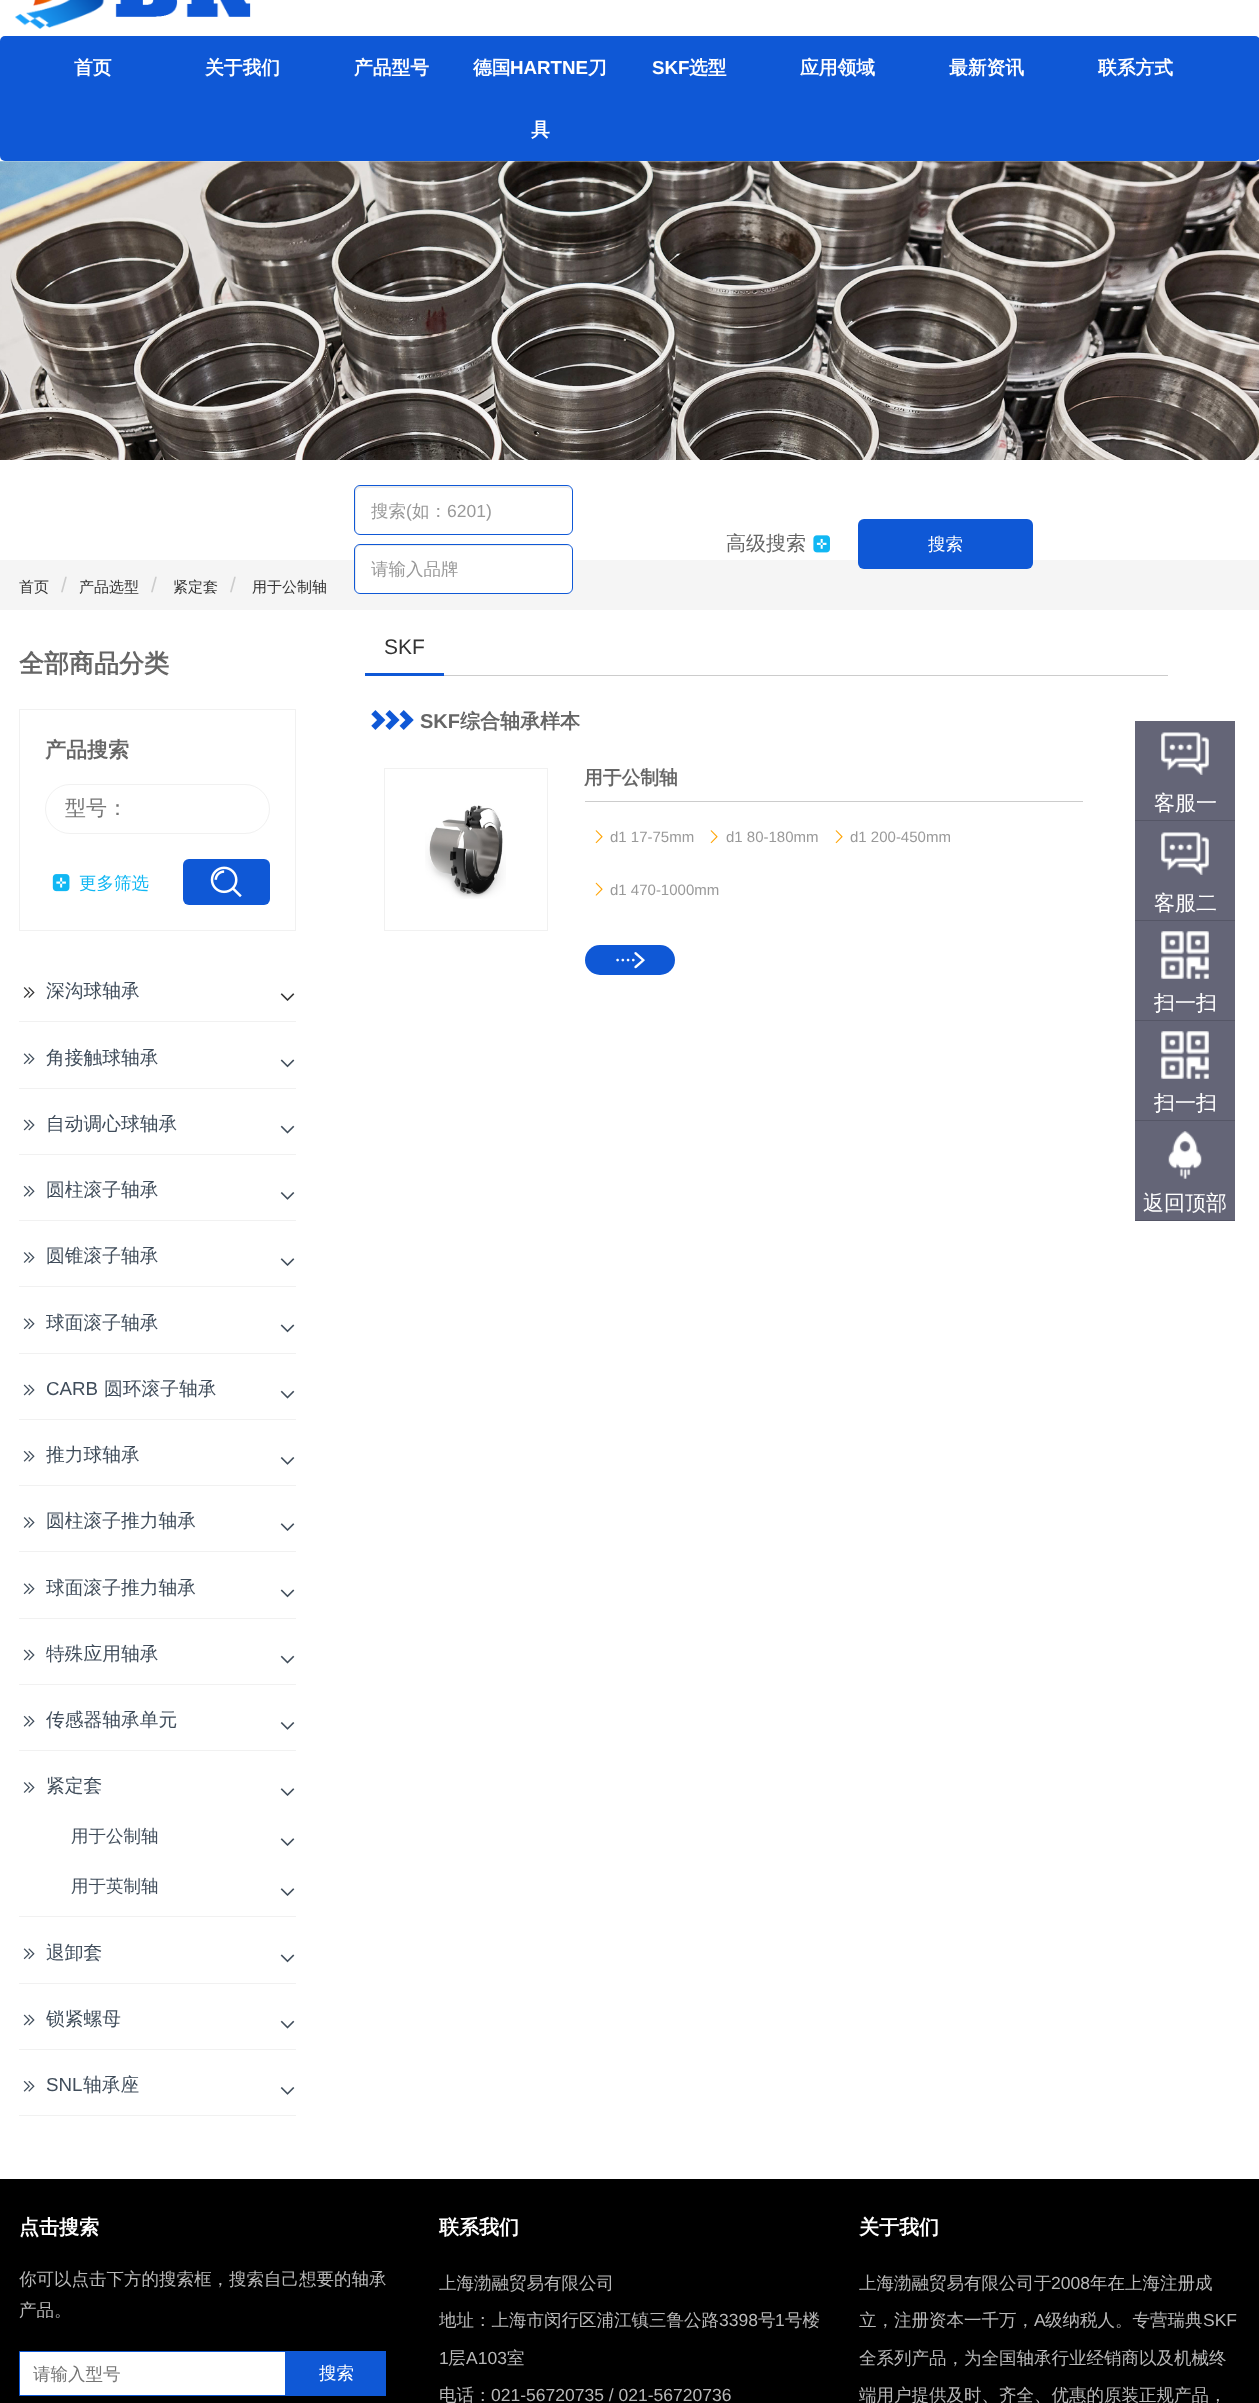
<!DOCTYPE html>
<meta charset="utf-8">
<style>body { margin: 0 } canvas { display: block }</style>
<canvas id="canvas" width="1259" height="2403"></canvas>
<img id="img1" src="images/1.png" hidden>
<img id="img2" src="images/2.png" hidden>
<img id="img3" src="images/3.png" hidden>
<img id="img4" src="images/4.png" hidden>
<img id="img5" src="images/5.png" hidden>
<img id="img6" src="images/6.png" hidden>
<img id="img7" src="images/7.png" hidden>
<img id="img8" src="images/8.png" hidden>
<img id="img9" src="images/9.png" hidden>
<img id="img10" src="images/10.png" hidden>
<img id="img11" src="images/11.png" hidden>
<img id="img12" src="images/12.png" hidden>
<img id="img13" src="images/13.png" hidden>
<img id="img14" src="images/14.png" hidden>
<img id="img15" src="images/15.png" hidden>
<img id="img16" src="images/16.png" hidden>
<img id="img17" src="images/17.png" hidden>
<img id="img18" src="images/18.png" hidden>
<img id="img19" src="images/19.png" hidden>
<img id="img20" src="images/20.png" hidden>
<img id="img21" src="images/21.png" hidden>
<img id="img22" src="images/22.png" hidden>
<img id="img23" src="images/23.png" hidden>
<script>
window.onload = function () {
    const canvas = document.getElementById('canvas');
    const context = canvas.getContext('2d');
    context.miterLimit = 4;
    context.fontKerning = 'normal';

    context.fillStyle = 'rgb(255, 255, 255)';
    context.fillRect(0, 0, 1259, 2403);
    context.drawImage(document.getElementById('img1'), 15, 0, 236, 29);
    context.fillStyle = 'rgb(15, 88, 214)';
    context.beginPath();
    context.roundRect(0, 36, 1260, 125, 5);
    context.fill();
    context.drawImage(document.getElementById('img2'), 0, 161, 1259, 299);
    context.fillStyle = 'rgb(236, 236, 236)';
    context.beginPath();
    context.moveTo(361, 488);
    context.lineTo(568, 488);
    context.lineTo(571, 489);
    context.bezierCurveTo(570, 487, 568, 486, 566, 486);
    context.lineTo(360, 486);
    context.bezierCurveTo(357, 486, 355, 488, 355, 491);
    context.lineTo(355, 529);
    context.bezierCurveTo(355, 530, 356, 532, 357, 533);
    context.lineTo(356, 530);
    context.lineTo(356, 492);
    context.bezierCurveTo(356, 490, 358, 488, 361, 488);
    context.closePath();
    context.fill();
    context.beginPath();
    context.roundRect(354.5, 485.5, 218, 49, 5.5);
    context.strokeStyle = 'rgb(15, 88, 214)';
    context.stroke();
    context.drawImage(document.getElementById('img3'), 813, 535, 17, 18);
    context.fillStyle = 'rgb(245, 245, 245)';
    context.fillRect(0, 560, 1259, 50);
    context.fillStyle = 'rgb(15, 88, 214)';
    context.beginPath();
    context.roundRect(858, 519, 175, 50, 6);
    context.fill();
    context.fillStyle = 'rgb(255, 255, 255)';
    context.beginPath();
    context.roundRect(354, 544, 219, 50, 6);
    context.fill();
    context.fillStyle = 'rgb(236, 236, 236)';
    context.beginPath();
    context.moveTo(361, 546);
    context.lineTo(567, 546);
    context.lineTo(570, 547);
    context.bezierCurveTo(569, 546, 567, 545, 566, 545);
    context.lineTo(360, 545);
    context.bezierCurveTo(357, 545, 355, 547, 355, 550);
    context.lineTo(355, 588);
    context.bezierCurveTo(355, 589, 356, 591, 357, 592);
    context.lineTo(356, 589);
    context.lineTo(356, 551);
    context.bezierCurveTo(356, 548, 358, 546, 361, 546);
    context.closePath();
    context.fill();
    context.beginPath();
    context.roundRect(354.5, 544.5, 218, 49, 5.5);
    context.stroke();
    context.strokeStyle = 'rgb(241, 241, 241)';
    context.strokeRect(19.5, 709.5, 276, 221);
    context.beginPath();
    context.roundRect(45.5, 784.5, 224, 49, 24.5);
    context.stroke();
    context.drawImage(document.getElementById('img4'), 52, 874, 18, 18);
    context.fillStyle = 'rgb(15, 88, 214)';
    context.beginPath();
    context.roundRect(183, 859, 87, 46, 6);
    context.fill();
    context.drawImage(document.getElementById('img5'), 210, 866, 32, 31);
    context.fillStyle = 'rgb(241, 241, 241)';
    context.fillRect(19, 1021, 277, 1);
    context.drawImage(document.getElementById('img6'), 23, 987, 12, 11);
    context.drawImage(document.getElementById('img7'), 280, 993, 15, 8);
    context.fillRect(19, 1088, 277, 1);
    context.drawImage(document.getElementById('img8'), 23, 1053, 12, 12);
    context.drawImage(document.getElementById('img9'), 280, 1059, 15, 9);
    context.fillRect(19, 1154, 277, 1);
    context.drawImage(document.getElementById('img10'), 23, 1119, 12, 12);
    context.drawImage(document.getElementById('img11'), 280, 1125, 15, 9);
    context.fillRect(19, 1220, 277, 1);
    context.drawImage(document.getElementById('img12'), 23, 1185, 12, 12);
    context.drawImage(document.getElementById('img13'), 280, 1192, 15, 8);
    context.fillRect(19, 1286, 277, 1);
    context.drawImage(document.getElementById('img14'), 23, 1252, 12, 11);
    context.drawImage(document.getElementById('img15'), 280, 1258, 15, 8);
    context.fillRect(19, 1353, 277, 1);
    context.drawImage(document.getElementById('img8'), 23, 1318, 12, 12);
    context.drawImage(document.getElementById('img9'), 280, 1324, 15, 9);
    context.fillRect(19, 1419, 277, 1);
    context.drawImage(document.getElementById('img10'), 23, 1384, 12, 12);
    context.drawImage(document.getElementById('img11'), 280, 1390, 15, 9);
    context.fillRect(19, 1485, 277, 1);
    context.drawImage(document.getElementById('img12'), 23, 1450, 12, 12);
    context.drawImage(document.getElementById('img13'), 280, 1457, 15, 8);
    context.fillRect(19, 1551, 277, 1);
    context.drawImage(document.getElementById('img14'), 23, 1517, 12, 11);
    context.drawImage(document.getElementById('img15'), 280, 1523, 15, 8);
    context.fillRect(19, 1618, 277, 1);
    context.drawImage(document.getElementById('img8'), 23, 1583, 12, 12);
    context.drawImage(document.getElementById('img9'), 280, 1589, 15, 9);
    context.fillRect(19, 1684, 277, 1);
    context.drawImage(document.getElementById('img10'), 23, 1649, 12, 12);
    context.drawImage(document.getElementById('img11'), 280, 1655, 15, 9);
    context.fillRect(19, 1750, 277, 1);
    context.drawImage(document.getElementById('img12'), 23, 1715, 12, 12);
    context.drawImage(document.getElementById('img13'), 280, 1722, 15, 8);
    context.fillRect(19, 1916, 277, 1);
    context.drawImage(document.getElementById('img14'), 23, 1782, 12, 11);
    context.drawImage(document.getElementById('img15'), 280, 1788, 15, 8);
    context.drawImage(document.getElementById('img15'), 280, 1838, 15, 8);
    context.drawImage(document.getElementById('img15'), 280, 1888, 15, 8);
    context.fillRect(19, 1983, 277, 1);
    context.drawImage(document.getElementById('img8'), 23, 1948, 12, 12);
    context.drawImage(document.getElementById('img9'), 280, 1954, 15, 9);
    context.fillRect(19, 2049, 277, 1);
    context.drawImage(document.getElementById('img10'), 23, 2014, 12, 12);
    context.drawImage(document.getElementById('img11'), 280, 2020, 15, 9);
    context.fillRect(19, 2115, 277, 1);
    context.drawImage(document.getElementById('img12'), 23, 2080, 12, 12);
    context.drawImage(document.getElementById('img13'), 280, 2087, 15, 8);
    context.fillStyle = 'rgb(204, 204, 204)';
    context.fillRect(444, 675, 724, 1);
    context.fillStyle = 'rgb(15, 88, 214)';
    context.fillRect(365, 673, 79, 3);
    context.drawImage(document.getElementById('img16'), 371, 710, 43, 20);
    context.strokeRect(384.5, 768.5, 163, 162);
    context.drawImage(document.getElementById('img17'), 425, 805, 81, 94);
    context.fillStyle = 'rgb(204, 204, 204)';
    context.fillRect(585, 801, 498, 1);
    context.drawImage(document.getElementById('img18'), 595, 830, 8, 14);
    context.drawImage(document.getElementById('img18'), 710, 830, 8, 14);
    context.drawImage(document.getElementById('img18'), 835, 830, 8, 14);
    context.drawImage(document.getElementById('img19'), 595, 882, 8, 14);
    context.fillStyle = 'rgb(15, 88, 214)';
    context.beginPath();
    context.roundRect(585, 945, 90, 30, 15);
    context.fill();
    context.drawImage(document.getElementById('img20'), 616, 952, 29, 17);
    context.fillStyle = 'rgb(100, 101, 119)';
    context.fillRect(1135, 721, 100, 99);
    context.drawImage(document.getElementById('img21'), 1161, 732, 48, 43);
    context.fillStyle = 'rgb(85, 86, 102)';
    context.fillRect(1135, 820, 100, 1);
    context.fillStyle = 'rgb(100, 101, 119)';
    context.fillRect(1135, 821, 100, 99);
    context.drawImage(document.getElementById('img21'), 1161, 832, 48, 43);
    context.fillStyle = 'rgb(85, 86, 102)';
    context.fillRect(1135, 920, 100, 1);
    context.fillStyle = 'rgb(100, 101, 119)';
    context.fillRect(1135, 921, 100, 99);
    context.drawImage(document.getElementById('img22'), 1161, 931, 48, 48);
    context.fillStyle = 'rgb(85, 86, 102)';
    context.fillRect(1135, 1020, 100, 1);
    context.fillStyle = 'rgb(100, 101, 119)';
    context.fillRect(1135, 1021, 100, 99);
    context.drawImage(document.getElementById('img22'), 1161, 1031, 48, 48);
    context.fillStyle = 'rgb(85, 86, 102)';
    context.fillRect(1135, 1120, 100, 1);
    context.fillStyle = 'rgb(100, 101, 119)';
    context.fillRect(1135, 1121, 100, 99);
    context.drawImage(document.getElementById('img23'), 1168, 1131, 34, 48);
    context.fillStyle = 'rgb(85, 86, 102)';
    context.fillRect(1135, 1220, 100, 1);
    context.fillStyle = 'rgb(0, 0, 0)';
    context.fillRect(0, 2179, 1259, 224);
    context.fillStyle = 'rgb(255, 255, 255)';
    context.beginPath();
    context.rect(19.5, 2351.5, 266, 44);
    context.fill();
    context.strokeStyle = 'rgb(15, 88, 214)';
    context.stroke();
    context.fillStyle = 'rgb(15, 88, 214)';
    context.fillRect(286, 2351, 100, 45);
    context.font = 'bold 18.75px WenQuanYi Zen Hei';
    context.fillStyle = 'rgb(255, 255, 255)';
    context.fillText('首页', 74, 74);
    context.fillText('关于我们', 205, 74);
    context.fillText('产品型号', 354, 74);
    context.fillText('德国', 473, 74);
    context.font = 'bold 18.75px Liberation Sans';
    context.fillText('HARTNE', 510, 74);
    context.font = 'bold 18.75px WenQuanYi Zen Hei';
    context.fillText('刀', 588, 74);
    context.fillText('具', 531, 136);
    context.font = 'bold 18.75px Liberation Sans';
    context.fillText('SKF', 652, 74);
    context.font = 'bold 18.75px WenQuanYi Zen Hei';
    context.fillText('选型', 689, 74);
    context.fillText('应用领域', 800, 74);
    context.fillText('最新资讯', 949, 74);
    context.fillText('联系方式', 1098, 74);
    context.font = '500 17.5px WenQuanYi Zen Hei';
    context.fillStyle = 'rgb(153, 153, 153)';
    context.fillText('搜索', 371, 517);
    context.font = '17.5px Liberation Sans';
    context.fillText('(', 406, 517);
    context.font = '500 17.5px WenQuanYi Zen Hei';
    context.fillText('如：', 412, 517);
    context.font = '17.5px Liberation Sans';
    context.fillText('6201)', 447, 517);
    context.font = '500 20px WenQuanYi Zen Hei';
    context.fillStyle = 'rgb(102, 102, 102)';
    context.fillText('高级搜索', 726, 550);
    context.font = '500 17.5px WenQuanYi Zen Hei';
    context.fillStyle = 'rgb(255, 255, 255)';
    context.fillText('搜索', 928, 550);
    context.fillStyle = 'rgb(153, 153, 153)';
    context.fillText('请输入品牌', 371, 575);
    context.font = '500 15px WenQuanYi Zen Hei';
    context.fillStyle = 'rgb(51, 51, 51)';
    context.fillText('首页', 19, 592);
    context.font = '21px Liberation Sans';
    context.fillStyle = 'rgb(204, 204, 204)';
    context.fillText('/', 61, 592);
    context.font = '500 15px WenQuanYi Zen Hei';
    context.fillStyle = 'rgb(51, 51, 51)';
    context.fillText('产品选型', 79, 592);
    context.font = '21px Liberation Sans';
    context.fillStyle = 'rgb(204, 204, 204)';
    context.fillText('/', 151, 592);
    context.font = '500 15px WenQuanYi Zen Hei';
    context.fillStyle = 'rgb(51, 51, 51)';
    context.fillText('紧定套', 173, 592);
    context.font = '21px Liberation Sans';
    context.fillStyle = 'rgb(204, 204, 204)';
    context.fillText('/', 230, 592);
    context.font = '500 15px WenQuanYi Zen Hei';
    context.fillStyle = 'rgb(51, 51, 51)';
    context.fillText('用于公制轴', 252, 592);
    context.font = 'bold 25px WenQuanYi Zen Hei';
    context.fillStyle = 'rgb(102, 102, 102)';
    context.fillText('全部商品分类', 19, 672);
    context.font = 'bold 21px WenQuanYi Zen Hei';
    context.fillText('产品搜索', 45, 757);
    context.font = '500 21px WenQuanYi Zen Hei';
    context.fillStyle = 'rgb(117, 117, 117)';
    context.fillText('型号：', 65, 815);
    context.font = '500 17.5px WenQuanYi Zen Hei';
    context.fillStyle = 'rgb(17, 183, 243)';
    context.fillText('更多筛选', 79, 889);
    context.font = '500 18.75px WenQuanYi Zen Hei';
    context.fillStyle = 'rgb(64, 77, 91)';
    context.fillText('深沟球轴承', 46, 997);
    context.fillText('角接触球轴承', 46, 1064);
    context.fillText('自动调心球轴承', 46, 1130);
    context.fillText('圆柱滚子轴承', 46, 1196);
    context.fillText('圆锥滚子轴承', 46, 1262);
    context.fillText('球面滚子轴承', 46, 1329);
    context.font = '18.75px Liberation Sans';
    context.fillText('CARB', 46, 1395);
    context.font = '500 18.75px WenQuanYi Zen Hei';
    context.fillText('圆环滚子轴承', 104, 1395);
    context.fillText('推力球轴承', 46, 1461);
    context.fillText('圆柱滚子推力轴承', 46, 1527);
    context.fillText('球面滚子推力轴承', 46, 1594);
    context.fillText('特殊应用轴承', 46, 1660);
    context.fillText('传感器轴承单元', 46, 1726);
    context.fillText('紧定套', 46, 1792);
    context.font = '500 17.5px WenQuanYi Zen Hei';
    context.fillText('用于公制轴', 71, 1842);
    context.fillText('用于英制轴', 71, 1892);
    context.font = '500 18.75px WenQuanYi Zen Hei';
    context.fillText('退卸套', 46, 1959);
    context.fillText('锁紧螺母', 46, 2025);
    context.font = '18.75px Liberation Sans';
    context.fillText('SNL', 46, 2091);
    context.font = '500 18.75px WenQuanYi Zen Hei';
    context.fillText('轴承座', 83, 2091);
    context.font = '21px Liberation Sans';
    context.fillStyle = 'rgb(51, 51, 51)';
    context.fillText('SKF', 384, 654);
    context.font = 'bold 20px Liberation Sans';
    context.fillStyle = 'rgb(102, 102, 102)';
    context.fillText('SKF', 420, 728);
    context.font = 'bold 20px WenQuanYi Zen Hei';
    context.fillText('综合轴承样本', 460, 728);
    context.font = 'bold 18.75px WenQuanYi Zen Hei';
    context.fillText('用于公制轴', 584, 784);
    context.font = '15px Liberation Sans';
    context.fillStyle = 'rgb(153, 153, 153)';
    context.fillText('d1 17-75mm', 610, 842);
    context.fillText('d1 80-180mm', 726, 842);
    context.fillText('d1 200-450mm', 850, 842);
    context.fillText('d1 470-1000mm', 610, 895);
    context.font = '500 21px WenQuanYi Zen Hei';
    context.fillStyle = 'rgb(255, 255, 255)';
    context.fillText('客服一', 1154, 810);
    context.fillText('客服二', 1154, 910);
    context.fillText('扫一扫', 1154, 1010);
    context.fillText('扫一扫', 1154, 1110);
    context.fillText('返回顶部', 1143, 1210);
    context.font = 'bold 20px WenQuanYi Zen Hei';
    context.fillText('点击搜索', 19, 2234);
    context.font = '500 17.5px WenQuanYi Zen Hei';
    context.fillStyle = 'rgb(185, 185, 185)';
    context.fillText('你可以点击下方的搜索框，搜索自己想要的轴承', 19, 2285);
    context.fillText('产品。', 19, 2316);
    context.fillStyle = 'rgb(117, 117, 117)';
    context.fillText('请输入型号', 33, 2380);
    context.fillStyle = 'rgb(255, 255, 255)';
    context.fillText('搜索', 319, 2379);
    context.font = 'bold 20px WenQuanYi Zen Hei';
    context.fillText('联系我们', 439, 2234);
    context.font = '500 17.5px WenQuanYi Zen Hei';
    context.fillStyle = 'rgb(185, 185, 185)';
    context.fillText('上海渤融贸易有限公司', 439, 2289);
    context.fillText('地址：上海市闵行区浦江镇三鲁公路', 439, 2326);
    context.font = '17.5px Liberation Sans';
    context.fillText('3398', 719, 2326);
    context.font = '500 17.5px WenQuanYi Zen Hei';
    context.fillText('号', 758, 2326);
    context.font = '17.5px Liberation Sans';
    context.fillText('1', 775, 2326);
    context.font = '500 17.5px WenQuanYi Zen Hei';
    context.fillText('号楼', 785, 2326);
    context.font = '17.5px Liberation Sans';
    context.fillText('1', 439, 2364);
    context.font = '500 17.5px WenQuanYi Zen Hei';
    context.fillText('层', 448, 2364);
    context.font = '17.5px Liberation Sans';
    context.fillText('A103', 466, 2364);
    context.font = '500 17.5px WenQuanYi Zen Hei';
    context.fillText('室', 507, 2364);
    context.fillText('电话：', 439, 2401);
    context.font = '17.5px Liberation Sans';
    context.fillText('021-56720735 / 021-56720736', 491, 2401);
    context.font = 'bold 20px WenQuanYi Zen Hei';
    context.fillStyle = 'rgb(255, 255, 255)';
    context.fillText('关于我们', 859, 2234);
    context.font = '500 17.5px WenQuanYi Zen Hei';
    context.fillStyle = 'rgb(185, 185, 185)';
    context.fillText('上海渤融贸易有限公司于', 859, 2289);
    context.font = '17.5px Liberation Sans';
    context.fillText('2008', 1051, 2289);
    context.font = '500 17.5px WenQuanYi Zen Hei';
    context.fillText('年在上海注册成', 1090, 2289);
    context.fillText('立，注册资本一千万，', 859, 2326);
    context.font = '17.5px Liberation Sans';
    context.fillText('A', 1034, 2326);
    context.font = '500 17.5px WenQuanYi Zen Hei';
    context.fillText('级纳税人。专营瑞典', 1045, 2326);
    context.font = '17.5px Liberation Sans';
    context.fillText('SKF', 1203, 2326);
    context.font = '500 17.5px WenQuanYi Zen Hei';
    context.fillText('全系列产品，为全国轴承行业经销商以及机械终', 859, 2364);
    context.fillText('端用户提供及时、齐全、优惠的原装正规产品，', 859, 2401);
};
</script>
